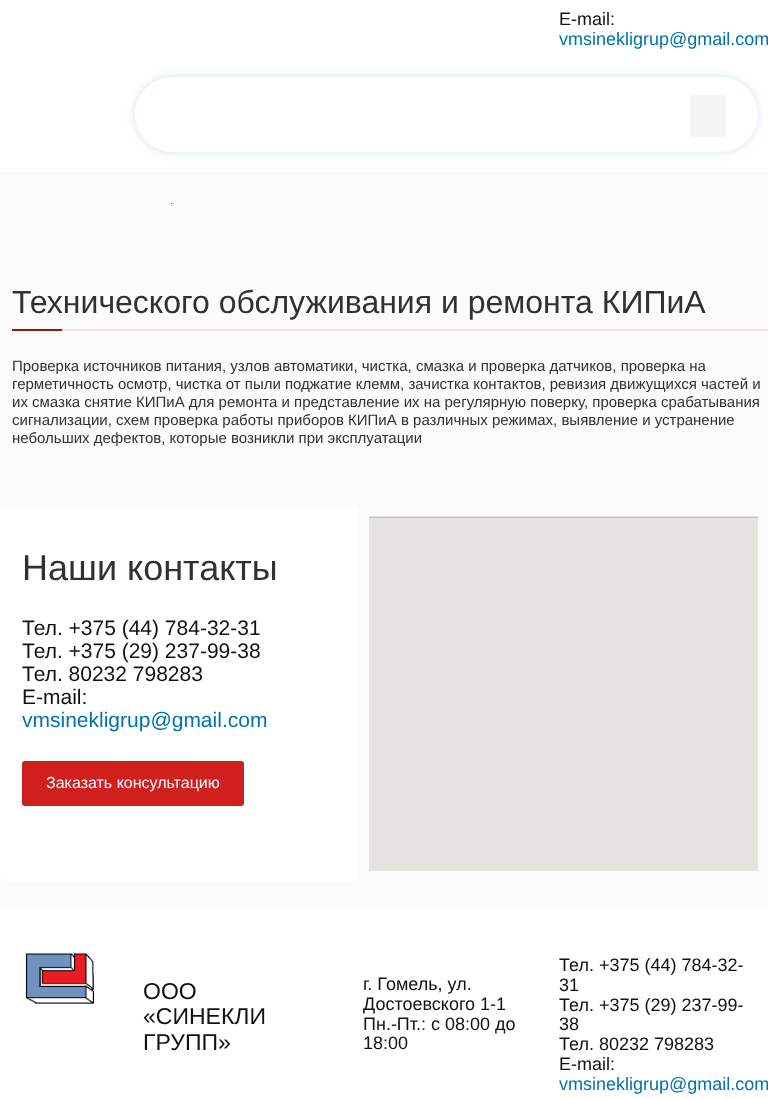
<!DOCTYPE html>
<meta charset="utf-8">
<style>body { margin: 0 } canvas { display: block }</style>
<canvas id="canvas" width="768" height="1099"></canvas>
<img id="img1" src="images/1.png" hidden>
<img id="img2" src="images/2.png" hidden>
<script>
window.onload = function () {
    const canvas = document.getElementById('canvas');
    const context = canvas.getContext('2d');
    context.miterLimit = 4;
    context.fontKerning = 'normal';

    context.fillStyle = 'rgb(255, 255, 255)';
    context.fillRect(0, 0, 768, 1099);
    context.save();
    context.beginPath();
    context.moveTo(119, 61);
    context.lineTo(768, 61);
    context.lineTo(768, 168);
    context.lineTo(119, 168);
    context.closePath();
    context.moveTo(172.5, 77);
    context.lineTo(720.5, 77);
    context.bezierCurveTo(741, 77, 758, 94, 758, 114.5);
    context.bezierCurveTo(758, 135, 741, 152, 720.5, 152);
    context.lineTo(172.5, 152);
    context.bezierCurveTo(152, 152, 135, 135, 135, 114.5);
    context.bezierCurveTo(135, 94, 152, 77, 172.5, 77);
    context.closePath();
    context.clip('evenodd');
    context.fillStyle = 'rgba(0, 93, 212, 0.18)';
    context.filter = 'blur(5px)';
    context.beginPath();
    context.roundRect(135, 77, 623, 75, 37.5);
    context.fill();
    context.filter = 'none';
    context.restore();
    context.fillStyle = 'rgb(243, 243, 243)';
    context.beginPath();
    context.roundRect(690, 95, 36, 42, 3);
    context.fill();
    context.fillStyle = 'rgb(251, 251, 251)';
    context.fillRect(0, 172, 768, 734);
    context.fillStyle = 'rgb(102, 93, 85)';
    context.fillRect(171, 203, 1, 1);
    context.fillStyle = 'rgb(245, 227, 227)';
    context.fillRect(62, 329, 706, 2);
    context.fillStyle = 'rgb(159, 19, 0)';
    context.fillRect(12, 329, 50, 2);
    context.fillStyle = 'rgb(255, 255, 255)';
    context.beginPath();
    context.roundRect(0, 506, 359, 375, 5);
    context.fill();
    context.fillStyle = 'rgb(207, 31, 31)';
    context.beginPath();
    context.roundRect(22, 761, 222, 45, 3);
    context.fill();
    context.drawImage(document.getElementById('img1'), 369, 516, 389, 355);
    context.drawImage(document.getElementById('img2'), 25, 952, 70, 52);
    context.font = '18px Liberation Sans';
    context.fillStyle = 'rgb(17, 17, 17)';
    context.fillText('E-mail:', 559, 25);
    context.fillStyle = 'rgb(0, 115, 170)';
    context.fillText('vmsinekligrup@gmail.com', 559, 45);
    context.font = '32px Liberation Sans';
    context.fillStyle = 'rgb(49, 49, 49)';
    context.fillText('Технического обслуживания и ремонта КИПиА', 12, 313);
    context.font = '15px Liberation Sans';
    context.fillText('Проверка источников питания, узлов автоматики, чистка, смазка и проверка датчиков, проверка на', 12, 371);
    context.fillText('герметичность осмотр, чистка от пыли поджатие клемм, зачистка контактов, ревизия движущихся частей и', 12, 389);
    context.fillText('их смазка снятие КИПиА для ремонта и представление их на регулярную поверку, проверка срабатывания', 12, 407);
    context.fillText('сигнализации, схем проверка работы приборов КИПиА в различных режимах, выявление и устранение', 12, 425);
    context.fillText('небольших дефектов, которые возникли при эксплуатации', 12, 443);
    context.font = '36px Liberation Sans';
    context.fillText('Наши контакты', 22, 580);
    context.font = '21px Liberation Sans';
    context.fillStyle = 'rgb(17, 17, 17)';
    context.fillText('Тел. +375 (44) 784-32-31', 22, 635);
    context.fillText('Тел. +375 (29) 237-99-38', 22, 658);
    context.fillText('Тел. 80232 798283', 22, 681);
    context.fillText('E-mail:', 22, 704);
    context.fillStyle = 'rgb(0, 115, 170)';
    context.fillText('vmsinekligrup@gmail.com', 22, 727);
    context.font = '16px Liberation Sans';
    context.fillStyle = 'rgb(255, 255, 255)';
    context.fillText('Заказать консультацию', 46, 788);
    context.font = '23px Liberation Sans';
    context.fillStyle = 'rgb(17, 17, 17)';
    context.fillText('ООО', 143, 999);
    context.fillText('«СИНЕКЛИ', 143, 1024);
    context.fillText('ГРУПП»', 143, 1050);
    context.font = '18px Liberation Sans';
    context.fillText('г. Гомель, ул.', 363, 990);
    context.fillText('Достоевского 1-1', 363, 1010);
    context.fillText('Пн.-Пт.: с 08:00 до', 363, 1030);
    context.fillText('18:00', 363, 1049);
    context.fillText('Тел. +375 (44) 784-32-', 559, 971);
    context.fillText('31', 559, 991);
    context.fillText('Тел. +375 (29) 237-99-', 559, 1011);
    context.fillText('38', 559, 1030);
    context.fillText('Тел. 80232 798283', 559, 1050);
    context.fillText('E-mail:', 559, 1070);
    context.fillStyle = 'rgb(0, 115, 170)';
    context.fillText('vmsinekligrup@gmail.com', 559, 1090);
};
</script>
